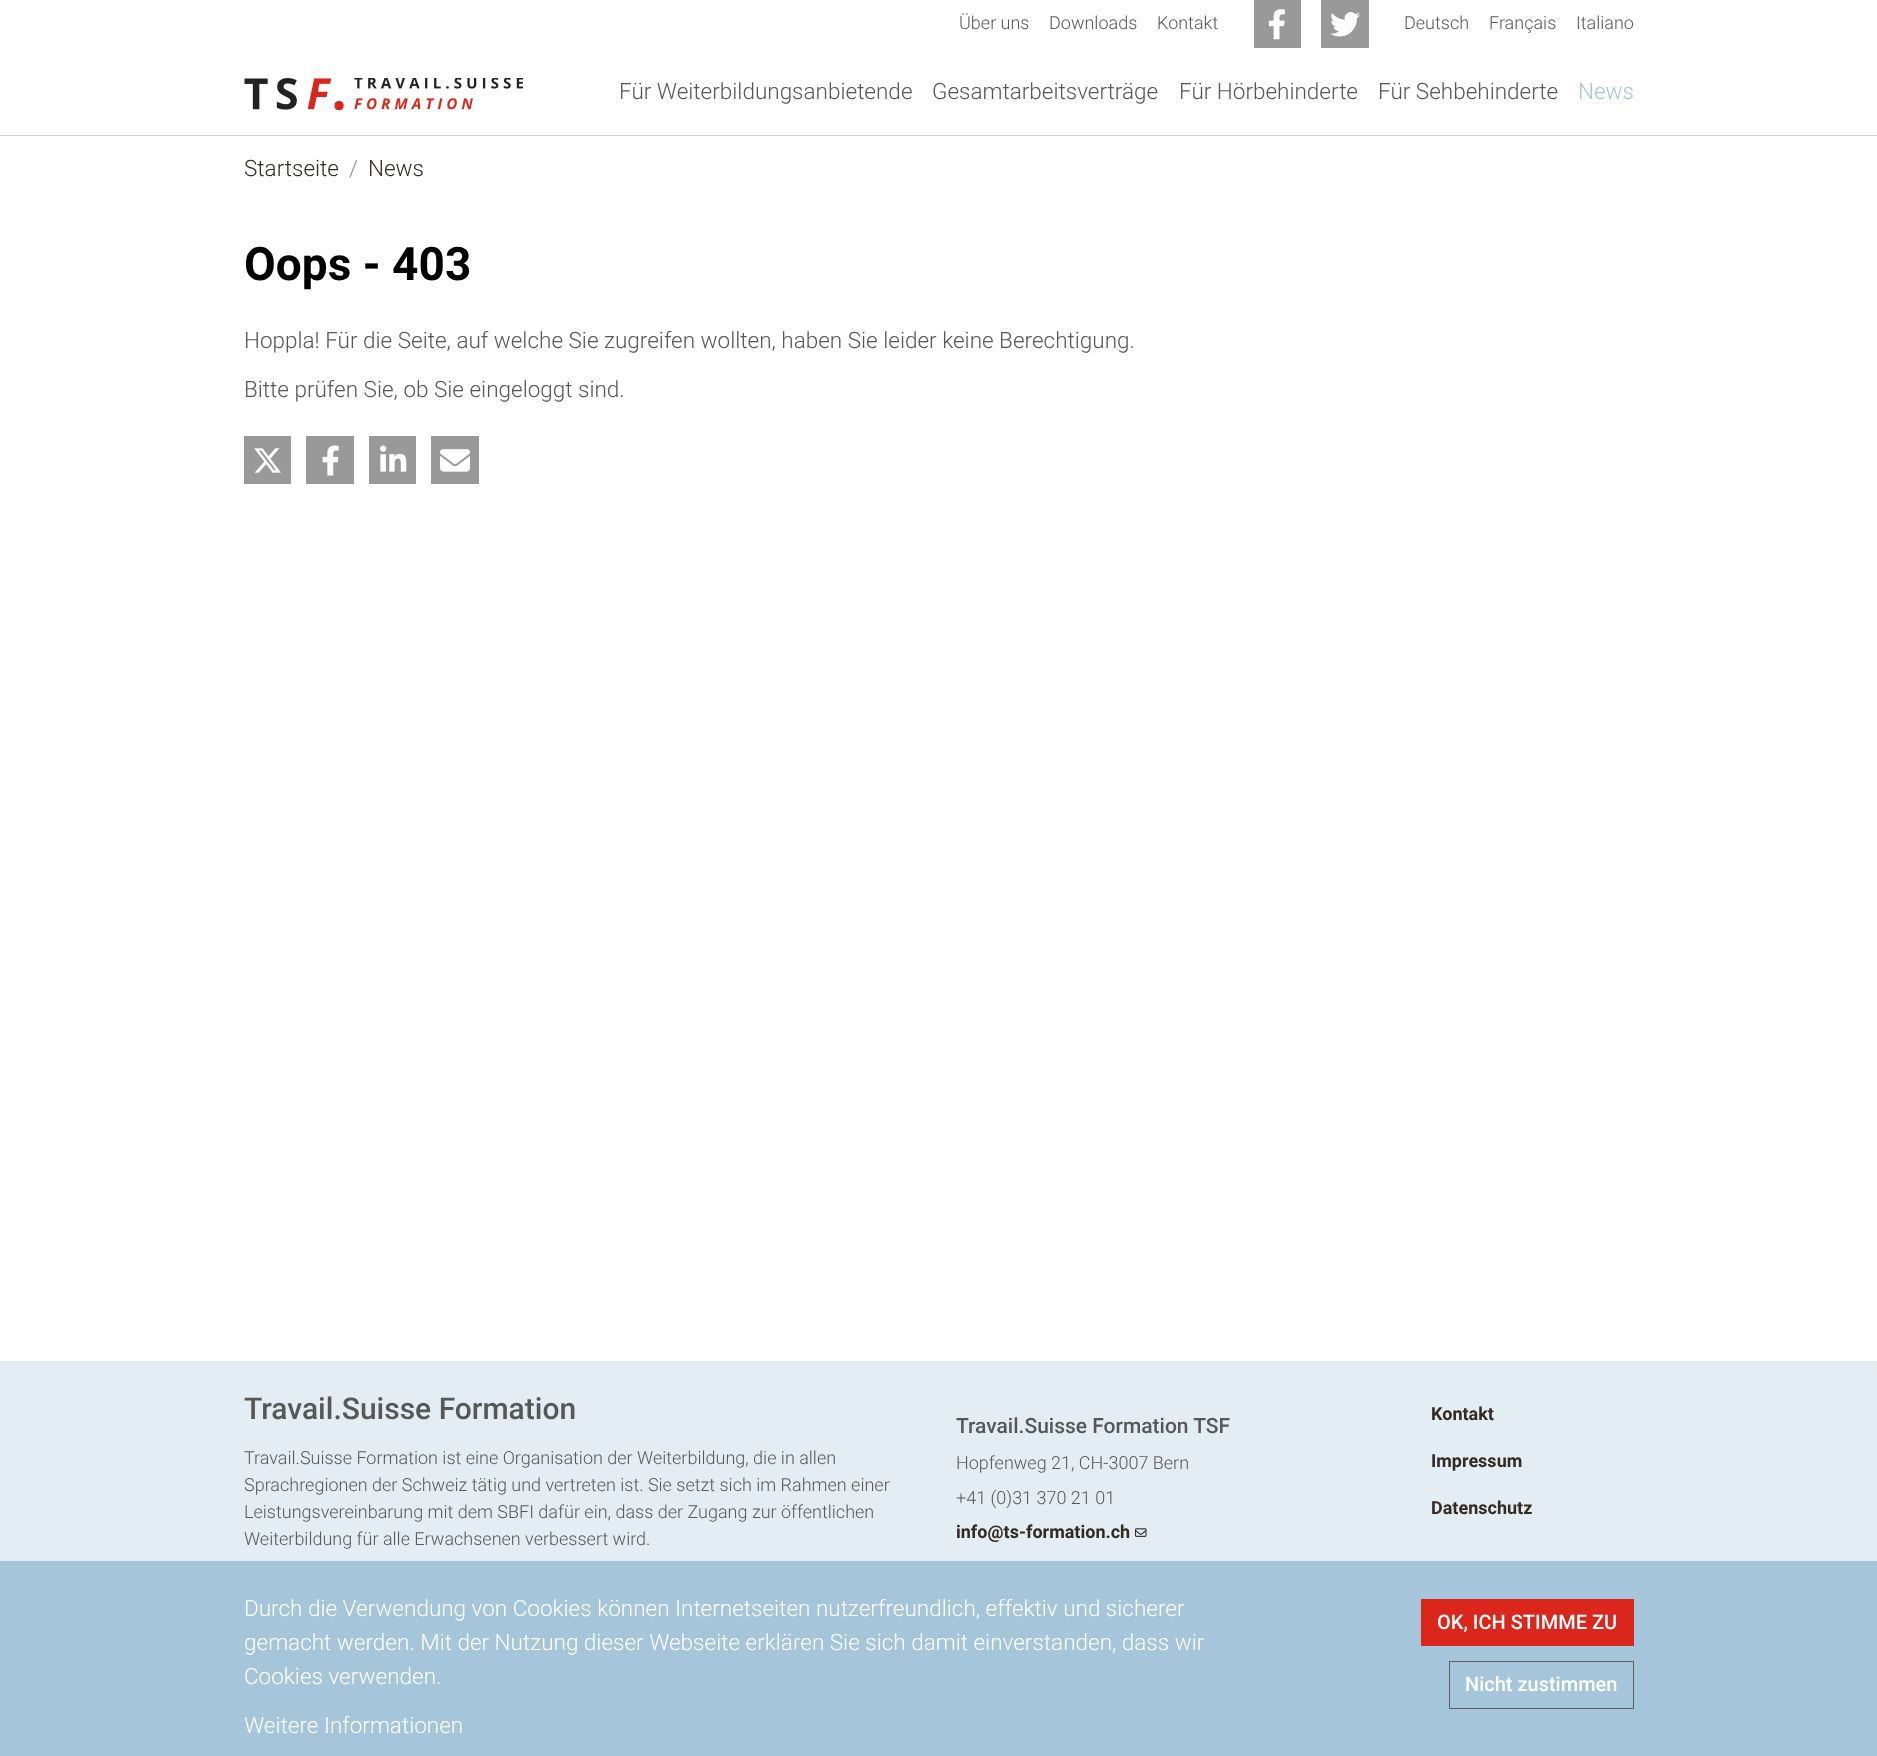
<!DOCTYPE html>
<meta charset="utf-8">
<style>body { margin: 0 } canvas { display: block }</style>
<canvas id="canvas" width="1877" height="1756"></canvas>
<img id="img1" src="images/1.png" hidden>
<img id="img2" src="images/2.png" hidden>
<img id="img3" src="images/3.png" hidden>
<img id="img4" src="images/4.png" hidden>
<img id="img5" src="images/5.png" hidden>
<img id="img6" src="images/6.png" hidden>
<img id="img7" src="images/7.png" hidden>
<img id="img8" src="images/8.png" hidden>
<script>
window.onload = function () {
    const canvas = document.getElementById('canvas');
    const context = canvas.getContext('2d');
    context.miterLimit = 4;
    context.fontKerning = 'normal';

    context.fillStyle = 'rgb(255, 255, 255)';
    context.fillRect(0, 0, 1877, 1756);
    context.fillStyle = 'rgb(153, 153, 153)';
    context.fillRect(1254, 0, 47, 48);
    context.drawImage(document.getElementById('img1'), 1268, 9, 17, 31);
    context.fillRect(1321, 0, 48, 48);
    context.drawImage(document.getElementById('img2'), 1330, 12, 30, 25);
    context.fillStyle = 'rgb(196, 205, 218)';
    context.fillRect(0, 135, 1877, 1);
    context.drawImage(document.getElementById('img3'), 244, 78, 279, 32);
    context.fillStyle = 'rgb(153, 153, 153)';
    context.fillRect(244, 436, 47, 48);
    context.drawImage(document.getElementById('img4'), 254, 448, 27, 25);
    context.fillRect(306, 436, 48, 48);
    context.drawImage(document.getElementById('img5'), 322, 445, 17, 31);
    context.fillRect(369, 436, 47, 48);
    context.drawImage(document.getElementById('img6'), 380, 445, 27, 27);
    context.fillRect(431, 436, 48, 48);
    context.drawImage(document.getElementById('img7'), 440, 449, 30, 23);
    context.fillStyle = 'rgb(229, 237, 244)';
    context.fillRect(0, 1361, 1877, 200);
    context.drawImage(document.getElementById('img8'), 1135, 1528, 12, 9);
    context.fillStyle = 'rgb(165, 197, 218)';
    context.fillRect(0, 1561, 1877, 195);
    context.fillStyle = 'rgb(219, 38, 27)';
    context.fillRect(1421, 1599, 213, 47);
    context.strokeStyle = 'rgb(102, 88, 91)';
    context.strokeRect(1449.5, 1661.5, 184, 47);
    context.font = '300 18px Roboto';
    context.fillStyle = 'rgb(87, 87, 86)';
    context.fillText('Über uns', 959, 29);
    context.fillText('Downloads', 1049, 29);
    context.fillText('Kontakt', 1157, 29);
    context.fillText('Deutsch', 1404, 29);
    context.fillText('Français', 1489, 29);
    context.fillText('Italiano', 1576, 29);
    context.font = '300 22.5px Roboto';
    context.fillText('Für Weiterbildungsanbietende', 619, 99);
    context.fillText('Gesamtarbeitsverträge', 932, 99);
    context.fillText('Für Hörbehinderte', 1179, 99);
    context.fillText('Für Sehbehinderte', 1378, 99);
    context.fillStyle = 'rgb(165, 197, 218)';
    context.fillText('News', 1578, 99);
    context.fillStyle = 'rgb(51, 43, 34)';
    context.fillText('Startseite', 244, 176);
    context.fillStyle = 'rgb(142, 142, 142)';
    context.fillText('/', 349, 176);
    context.fillStyle = 'rgb(51, 43, 34)';
    context.fillText('News', 368, 176);
    context.font = 'bold 46px Roboto';
    context.fillStyle = 'rgb(0, 0, 0)';
    context.fillText('Oops - 403', 244, 280);
    context.font = '300 22.5px Roboto';
    context.fillStyle = 'rgb(87, 87, 86)';
    context.fillText('Hoppla! Für die Seite, auf welche Sie zugreifen wollten, haben Sie leider keine Berechtigung.', 244, 348);
    context.fillText('Bitte prüfen Sie, ob Sie eingeloggt sind.', 244, 397);
    context.font = '500 30px Roboto';
    context.fillText('Travail.Suisse Formation', 244, 1419);
    context.font = '300 18px Roboto';
    context.fillText('Travail.Suisse Formation ist eine Organisation der Weiterbildung, die in allen', 244, 1464);
    context.fillText('Sprachregionen der Schweiz tätig und vertreten ist. Sie setzt sich im Rahmen einer', 244, 1491);
    context.fillText('Leistungsvereinbarung mit dem SBFI dafür ein, dass der Zugang zur öffentlichen', 244, 1518);
    context.fillText('Weiterbildung für alle Erwachsenen verbessert wird.', 244, 1545);
    context.font = '500 21px Roboto';
    context.fillText('Travail.Suisse Formation TSF', 956, 1433);
    context.font = '300 18px Roboto';
    context.fillText('Hopfenweg 21, CH-3007 Bern', 956, 1469);
    context.fillText('+41 (0)31 370 21 01', 956, 1504);
    context.font = 'bold 18px Roboto';
    context.fillStyle = 'rgb(51, 43, 34)';
    context.fillText('info@ts-formation.ch', 956, 1538);
    context.fillText('Kontakt', 1431, 1420);
    context.fillText('Impressum', 1431, 1467);
    context.fillText('Datenschutz', 1431, 1514);
    context.font = '300 22.5px Roboto';
    context.fillStyle = 'rgb(255, 255, 255)';
    context.fillText('Durch die Verwendung von Cookies können Internetseiten nutzerfreundlich, effektiv und sicherer', 244, 1616);
    context.fillText('gemacht werden. Mit der Nutzung dieser Webseite erklären Sie sich damit einverstanden, dass wir', 244, 1650);
    context.fillText('Cookies verwenden.', 244, 1684);
    context.fillText('Weitere Informationen', 244, 1733);
    context.font = '500 20px Roboto';
    context.fillText('OK, ICH STIMME ZU', 1437, 1629);
    context.fillText('Nicht zustimmen', 1465, 1691);
};
</script>
